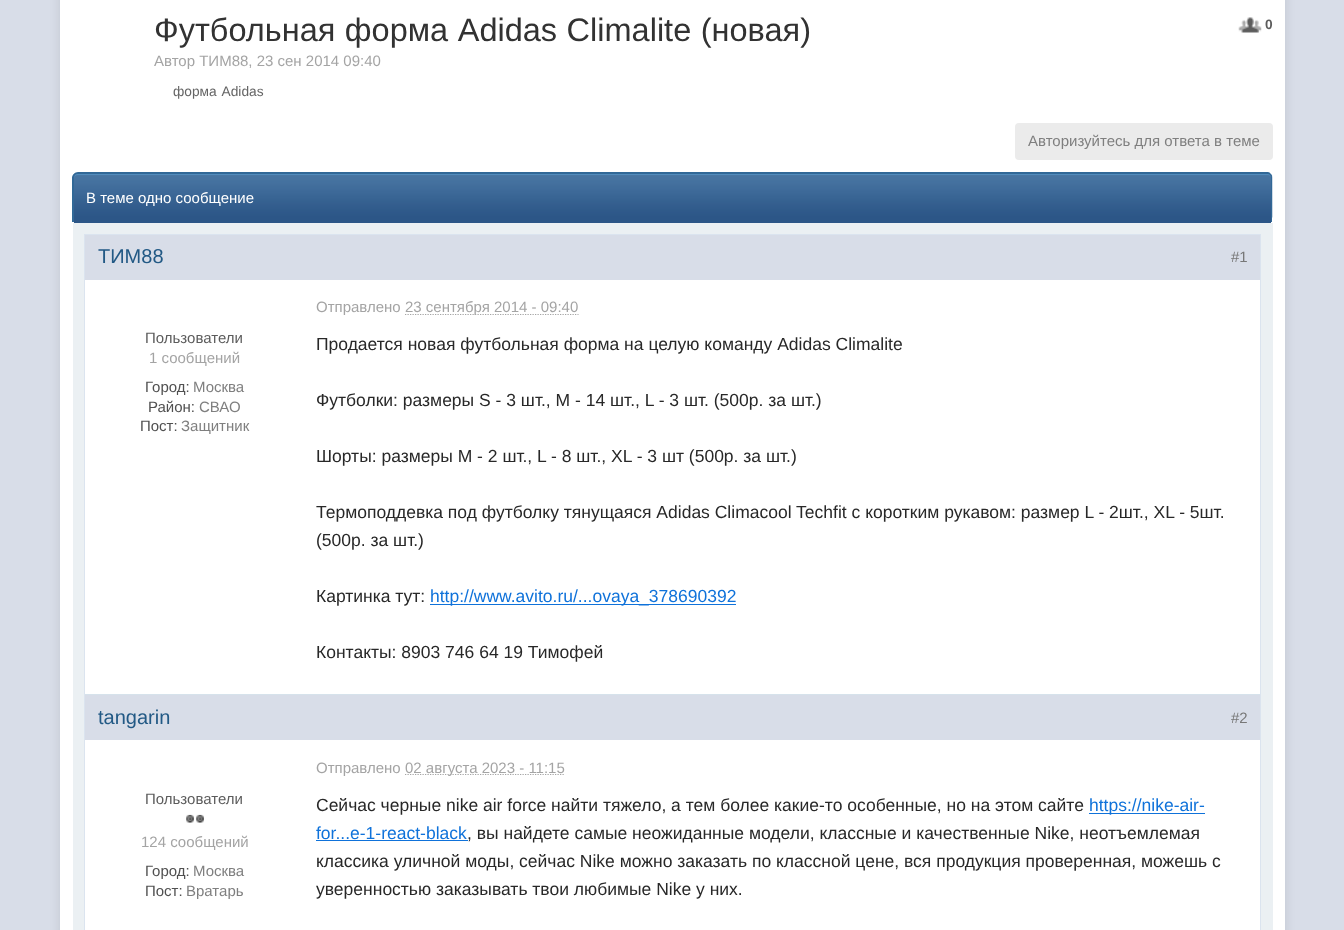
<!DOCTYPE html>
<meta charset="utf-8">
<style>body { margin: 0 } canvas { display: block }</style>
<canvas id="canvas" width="1344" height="930"></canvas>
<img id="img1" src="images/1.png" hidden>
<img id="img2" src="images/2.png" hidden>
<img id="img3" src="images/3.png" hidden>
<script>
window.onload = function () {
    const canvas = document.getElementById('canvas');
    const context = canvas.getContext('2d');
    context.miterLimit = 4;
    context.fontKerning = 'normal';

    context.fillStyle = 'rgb(216, 221, 232)';
    context.fillRect(0, 0, 1344, 930);
    context.fillStyle = 'rgba(0, 0, 0, 0.1)';
    context.filter = 'blur(5.5px)';
    context.beginPath();
    context.rect(60, -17, 1225, 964);
    context.fill();
    context.filter = 'none';
    context.fillStyle = 'rgb(255, 255, 255)';
    context.fillRect(60, 0, 1225, 930);
    context.drawImage(document.getElementById('img1'), 1238, 17, 24, 16);
    context.fillStyle = 'rgb(235, 235, 235)';
    context.beginPath();
    context.roundRect(1015, 123, 258, 37, 4);
    context.fill();
    context.fillStyle = 'rgb(44, 86, 135)';
    context.fillRect(74, 217, 1197, 6);
    context.drawImage(document.getElementById('img2'), 72, 173, 1201, 45);
    context.fillStyle = 'rgb(82, 140, 188)';
    context.beginPath();
    context.moveTo(78, 175);
    context.lineTo(1268, 175);
    context.bezierCurveTo(1270, 175, 1271, 177, 1271, 179);
    context.bezierCurveTo(1271, 176, 1270, 174, 1267, 174);
    context.lineTo(78, 174);
    context.bezierCurveTo(75, 174, 74, 176, 74, 179);
    context.bezierCurveTo(74, 177, 75, 175, 78, 175);
    context.closePath();
    context.fill();
    context.fillStyle = 'rgb(49, 104, 151)';
    context.beginPath();
    context.moveTo(78, 172);
    context.lineTo(1268, 172);
    context.bezierCurveTo(1270, 172, 1272, 175, 1272, 178);
    context.lineTo(1272, 222);
    context.lineTo(72, 222);
    context.lineTo(72, 178);
    context.bezierCurveTo(72, 175, 75, 172, 78, 172);
    context.closePath();
    context.moveTo(78, 174);
    context.lineTo(1268, 174);
    context.bezierCurveTo(1270, 174, 1271, 175, 1271, 178);
    context.lineTo(1271, 222);
    context.lineTo(74, 222);
    context.lineTo(74, 178);
    context.bezierCurveTo(74, 175, 75, 174, 78, 174);
    context.closePath();
    context.fill('evenodd');
    context.fillStyle = 'rgb(235, 240, 243)';
    context.fillRect(73, 223, 1200, 707);
    context.fillStyle = 'rgb(255, 255, 255)';
    context.fillRect(85, 280, 1175, 650);
    context.strokeStyle = 'rgb(219, 228, 239)';
    context.strokeRect(84.5, 234.5, 1176, 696);
    context.fillStyle = 'rgb(214, 226, 235)';
    context.fillRect(85, 694, 1175, 1);
    context.fillStyle = 'rgb(216, 221, 232)';
    context.fillRect(85, 235, 1175, 45);
    context.beginPath();
    context.moveTo(405, 314.5);
    context.lineTo(578.5, 314.5);
    context.strokeStyle = 'rgb(164, 164, 164)';
    context.lineWidth = 1.2;
    context.setLineDash([1.25, 1.25]);
    context.stroke();
    context.fillStyle = 'rgb(15, 114, 218)';
    context.fillRect(430, 604, 306, 1);
    context.fillStyle = 'rgb(216, 221, 232)';
    context.fillRect(85, 695, 1175, 45);
    context.drawImage(document.getElementById('img3'), 186, 814, 8, 9);
    context.drawImage(document.getElementById('img3'), 196, 814, 8, 9);
    context.beginPath();
    context.moveTo(405, 774.5);
    context.lineTo(565, 774.5);
    context.stroke();
    context.fillStyle = 'rgb(15, 114, 218)';
    context.fillRect(1089, 813, 116, 1);
    context.fillRect(316, 840, 152, 1);
    context.wordSpacing = '0.5px';
    context.font = '32.5px Liberation Sans';
    context.fillStyle = 'rgb(50, 50, 50)';
    context.fillText('Футбольная форма Adidas Climalite (новая)', 154, 41);
    context.wordSpacing = '0px';
    context.font = '15px Liberation Sans';
    context.fillStyle = 'rgb(164, 164, 164)';
    context.fillText('Автор ТИМ88, 23 сен 2014 09:40', 154, 66);
    context.wordSpacing = '1px';
    context.font = '13.75px Liberation Sans';
    context.fillStyle = 'rgb(101, 101, 101)';
    context.fillText('форма Adidas', 173, 96);
    context.wordSpacing = '0px';
    context.font = 'bold 13.75px Liberation Sans';
    context.fillStyle = 'rgb(92, 92, 92)';
    context.fillText('0', 1265, 29);
    context.font = '15px Liberation Sans';
    context.fillStyle = 'rgb(127, 127, 127)';
    context.fillText('Авторизуйтесь для ответа в теме', 1028, 146);
    context.fillStyle = 'rgb(255, 255, 255)';
    context.fillText('В теме одно сообщение', 86, 203);
    context.font = '20px Liberation Sans';
    context.fillStyle = 'rgb(34, 89, 133)';
    context.fillText('ТИМ88', 98, 263);
    context.font = '15px Liberation Sans';
    context.fillStyle = 'rgb(119, 119, 119)';
    context.fillText('#1', 1231, 262);
    context.fillStyle = 'rgb(92, 92, 92)';
    context.fillText('Пользователи', 145, 343);
    context.fillStyle = 'rgb(164, 164, 164)';
    context.fillText('1 сообщений', 149, 363);
    context.fillStyle = 'rgb(80, 80, 80)';
    context.fillText('Город:', 145, 392);
    context.fillStyle = 'rgb(127, 127, 127)';
    context.fillText('Москва', 193, 392);
    context.fillStyle = 'rgb(80, 80, 80)';
    context.fillText('Район:', 148, 412);
    context.fillStyle = 'rgb(127, 127, 127)';
    context.fillText('СВАО', 199, 412);
    context.fillStyle = 'rgb(80, 80, 80)';
    context.fillText('Пост:', 140, 431);
    context.fillStyle = 'rgb(127, 127, 127)';
    context.fillText('Защитник', 181, 431);
    context.fillStyle = 'rgb(164, 164, 164)';
    context.fillText('Отправлено', 316, 312);
    context.fillText('23 сентября 2014 - 09:40', 405, 312);
    context.font = '17.5px Liberation Sans';
    context.fillStyle = 'rgb(40, 40, 40)';
    context.fillText('Продается новая футбольная форма на целую команду Adidas Climalite', 316, 350);
    context.fillText('Футболки: размеры S - 3 шт., M - 14 шт., L - 3 шт. (500р. за шт.)', 316, 406);
    context.fillText('Шорты: размеры М - 2 шт., L - 8 шт., XL - 3 шт (500р. за шт.)', 316, 462);
    context.fillText('Термоподдевка под футболку тянущаяся Adidas Climacool Techfit с коротким рукавом: размер L - 2шт., XL - 5шт.', 316, 518);
    context.fillText('(500р. за шт.)', 316, 546);
    context.fillText('Картинка тут:', 316, 602);
    context.fillStyle = 'rgb(15, 114, 218)';
    context.fillText('http://www.avito.ru/...ovaya_378690392', 430, 602);
    context.fillStyle = 'rgb(40, 40, 40)';
    context.fillText('Контакты: 8903 746 64 19 Тимофей', 316, 658);
    context.font = '20px Liberation Sans';
    context.fillStyle = 'rgb(34, 89, 133)';
    context.fillText('tangarin', 98, 724);
    context.font = '15px Liberation Sans';
    context.fillStyle = 'rgb(119, 119, 119)';
    context.fillText('#2', 1231, 723);
    context.fillStyle = 'rgb(92, 92, 92)';
    context.fillText('Пользователи', 145, 804);
    context.fillStyle = 'rgb(164, 164, 164)';
    context.fillText('124 сообщений', 141, 847);
    context.fillStyle = 'rgb(80, 80, 80)';
    context.fillText('Город:', 145, 876);
    context.fillStyle = 'rgb(127, 127, 127)';
    context.fillText('Москва', 193, 876);
    context.fillStyle = 'rgb(80, 80, 80)';
    context.fillText('Пост:', 145, 896);
    context.fillStyle = 'rgb(127, 127, 127)';
    context.fillText('Вратарь', 186, 896);
    context.fillStyle = 'rgb(164, 164, 164)';
    context.fillText('Отправлено', 316, 773);
    context.fillText('02 августа 2023 - 11:15', 405, 773);
    context.font = '17.5px Liberation Sans';
    context.fillStyle = 'rgb(40, 40, 40)';
    context.fillText('Сейчас черные nike air force найти тяжело, а тем более какие-то особенные, но на этом сайте', 316, 811);
    context.fillStyle = 'rgb(15, 114, 218)';
    context.fillText('https://nike-air-', 1089, 811);
    context.fillText('for...e-1-react-black', 316, 839);
    context.fillStyle = 'rgb(40, 40, 40)';
    context.fillText(', вы найдете самые неожиданные модели, классные и качественные Nike, неотъемлемая', 467, 839);
    context.fillText('классика уличной моды, сейчас Nike можно заказать по классной цене, вся продукция проверенная, можешь с', 316, 867);
    context.fillText('уверенностью заказывать твои любимые Nike у них.', 316, 895);
};
</script>
